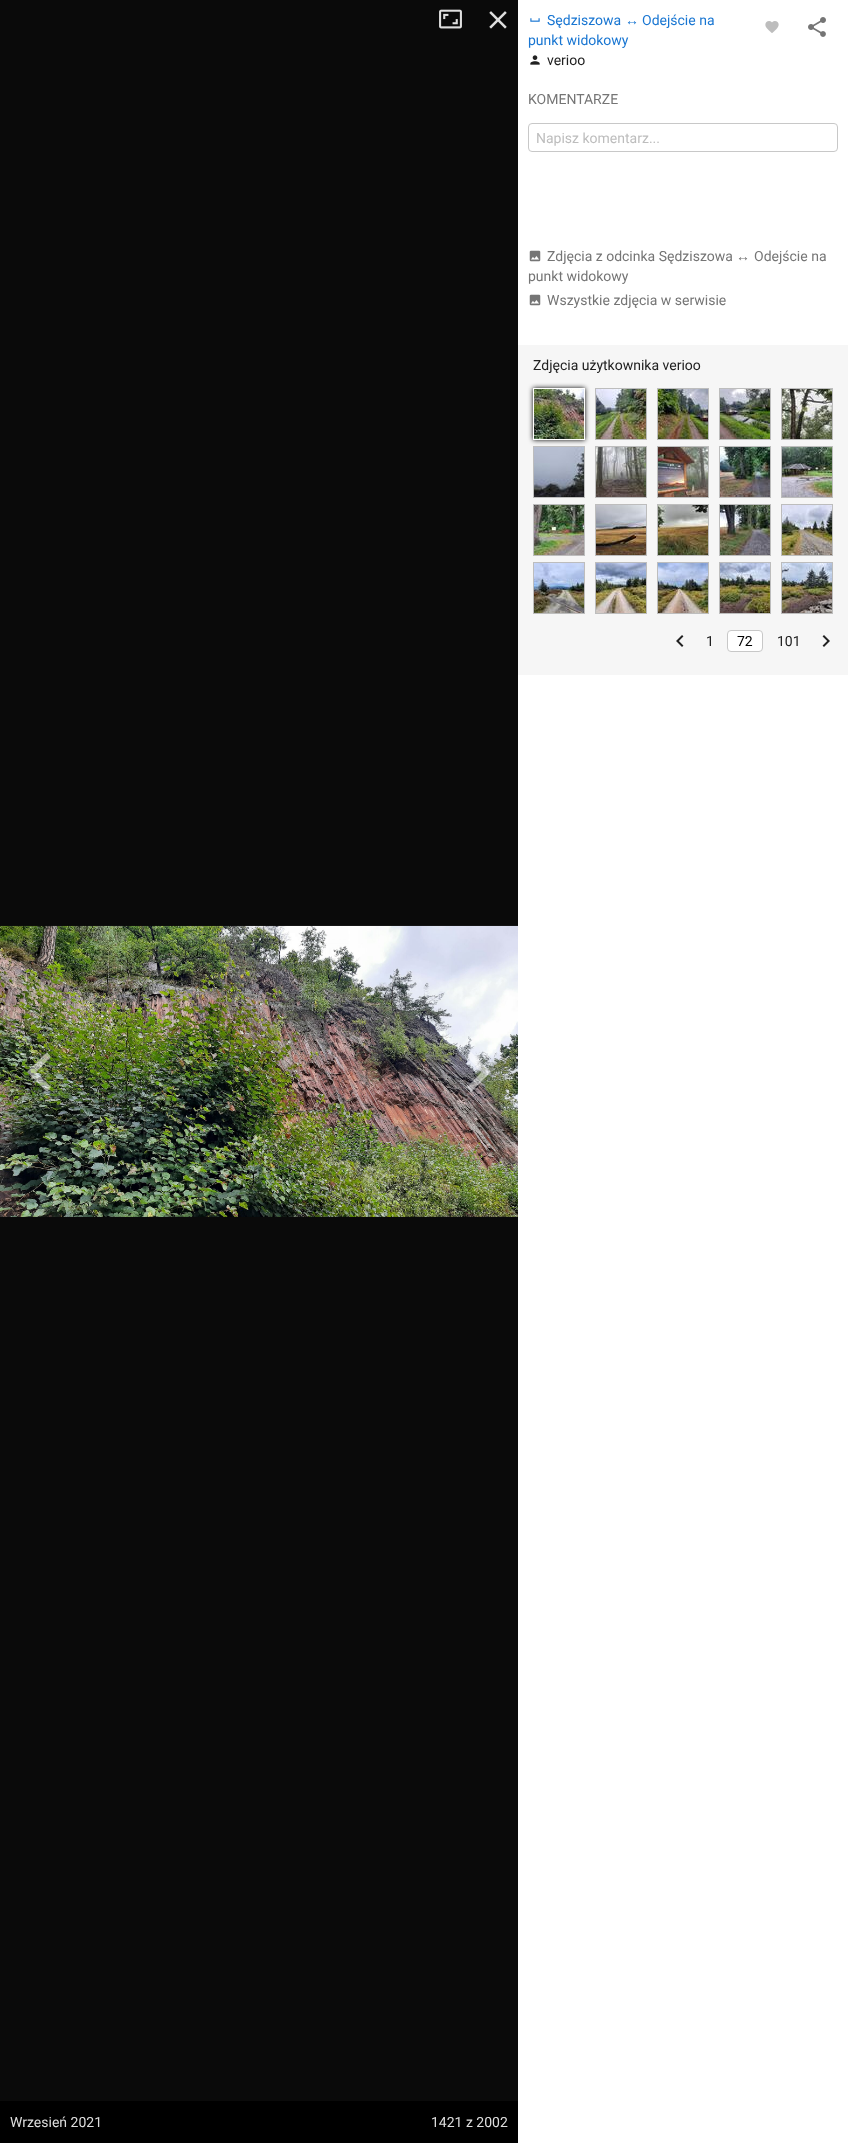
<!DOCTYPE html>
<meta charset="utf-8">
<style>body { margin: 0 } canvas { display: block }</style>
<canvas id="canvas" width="848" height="2143"></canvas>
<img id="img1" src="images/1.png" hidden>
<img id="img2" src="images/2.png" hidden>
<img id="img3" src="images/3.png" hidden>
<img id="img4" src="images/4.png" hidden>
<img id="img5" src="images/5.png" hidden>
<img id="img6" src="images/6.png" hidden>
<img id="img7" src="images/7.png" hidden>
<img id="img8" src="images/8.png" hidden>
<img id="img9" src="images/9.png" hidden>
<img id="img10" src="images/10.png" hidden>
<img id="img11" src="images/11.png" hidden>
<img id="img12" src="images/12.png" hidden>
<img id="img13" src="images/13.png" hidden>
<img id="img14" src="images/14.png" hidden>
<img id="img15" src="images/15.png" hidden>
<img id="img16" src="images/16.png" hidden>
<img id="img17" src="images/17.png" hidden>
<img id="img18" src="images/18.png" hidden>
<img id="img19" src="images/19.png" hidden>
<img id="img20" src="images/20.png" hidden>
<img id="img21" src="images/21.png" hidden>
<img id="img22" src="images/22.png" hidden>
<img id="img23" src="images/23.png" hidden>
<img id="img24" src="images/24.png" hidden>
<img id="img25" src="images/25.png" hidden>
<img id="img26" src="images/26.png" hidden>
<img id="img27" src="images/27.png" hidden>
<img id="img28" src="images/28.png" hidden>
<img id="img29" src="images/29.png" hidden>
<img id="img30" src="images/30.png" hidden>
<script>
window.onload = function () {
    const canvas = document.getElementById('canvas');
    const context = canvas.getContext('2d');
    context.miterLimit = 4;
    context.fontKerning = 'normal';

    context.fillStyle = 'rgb(10, 10, 10)';
    context.fillRect(0, 0, 848, 2143);
    context.fillStyle = 'rgb(255, 255, 255)';
    context.fillRect(518, 0, 330, 2143);
    context.drawImage(document.getElementById('img1'), 530, 18, 10, 4);
    context.drawImage(document.getElementById('img2'), 530, 55, 10, 10);
    context.drawImage(document.getElementById('img3'), 765, 21, 14, 12);
    context.drawImage(document.getElementById('img4'), 808, 17, 18, 20);
    context.beginPath();
    context.roundRect(528.5, 123.5, 309, 28, 3.5);
    context.strokeStyle = 'rgb(200, 200, 200)';
    context.stroke();
    context.drawImage(document.getElementById('img5'), 529, 250, 12, 12);
    context.drawImage(document.getElementById('img5'), 529, 294, 12, 12);
    context.fillStyle = 'rgb(246, 246, 246)';
    context.fillRect(518, 345, 330, 330);
    context.fillStyle = 'rgb(0, 0, 0)';
    context.filter = 'blur(2.5px)';
    context.beginPath();
    context.rect(533, 388, 52, 52);
    context.fill();
    context.filter = 'none';
    context.strokeStyle = 'rgb(255, 255, 255)';
    context.strokeRect(533.5, 388.5, 51, 51);
    context.drawImage(document.getElementById('img6'), 534, 389, 50, 50);
    context.strokeStyle = 'rgb(189, 189, 189)';
    context.strokeRect(595.5, 388.5, 51, 51);
    context.drawImage(document.getElementById('img7'), 596, 389, 50, 50);
    context.strokeRect(657.5, 388.5, 51, 51);
    context.drawImage(document.getElementById('img8'), 658, 389, 50, 50);
    context.strokeRect(719.5, 388.5, 51, 51);
    context.drawImage(document.getElementById('img9'), 720, 389, 50, 50);
    context.strokeRect(781.5, 388.5, 51, 51);
    context.drawImage(document.getElementById('img10'), 782, 389, 50, 50);
    context.strokeRect(533.5, 446.5, 51, 51);
    context.drawImage(document.getElementById('img11'), 534, 447, 50, 50);
    context.strokeRect(595.5, 446.5, 51, 51);
    context.drawImage(document.getElementById('img12'), 596, 447, 50, 50);
    context.strokeRect(657.5, 446.5, 51, 51);
    context.drawImage(document.getElementById('img13'), 658, 447, 50, 50);
    context.strokeRect(719.5, 446.5, 51, 51);
    context.drawImage(document.getElementById('img14'), 720, 447, 50, 50);
    context.strokeRect(781.5, 446.5, 51, 51);
    context.drawImage(document.getElementById('img15'), 782, 447, 50, 50);
    context.strokeRect(533.5, 504.5, 51, 51);
    context.drawImage(document.getElementById('img16'), 534, 505, 50, 50);
    context.strokeRect(595.5, 504.5, 51, 51);
    context.drawImage(document.getElementById('img17'), 596, 505, 50, 50);
    context.strokeRect(657.5, 504.5, 51, 51);
    context.drawImage(document.getElementById('img18'), 658, 505, 50, 50);
    context.strokeRect(719.5, 504.5, 51, 51);
    context.drawImage(document.getElementById('img19'), 720, 505, 50, 50);
    context.strokeRect(781.5, 504.5, 51, 51);
    context.drawImage(document.getElementById('img20'), 782, 505, 50, 50);
    context.strokeRect(533.5, 562.5, 51, 51);
    context.drawImage(document.getElementById('img21'), 534, 563, 50, 50);
    context.strokeRect(595.5, 562.5, 51, 51);
    context.drawImage(document.getElementById('img22'), 596, 563, 50, 50);
    context.strokeRect(657.5, 562.5, 51, 51);
    context.drawImage(document.getElementById('img23'), 658, 563, 50, 50);
    context.strokeRect(719.5, 562.5, 51, 51);
    context.drawImage(document.getElementById('img24'), 720, 563, 50, 50);
    context.strokeRect(781.5, 562.5, 51, 51);
    context.drawImage(document.getElementById('img25'), 782, 563, 50, 50);
    context.drawImage(document.getElementById('img26'), 676, 635, 8, 12);
    context.fillStyle = 'rgb(255, 255, 255)';
    context.beginPath();
    context.roundRect(727.5, 630.5, 35, 21, 3.5);
    context.fill();
    context.strokeStyle = 'rgb(200, 200, 200)';
    context.stroke();
    context.drawImage(document.getElementById('img27'), 822, 635, 8, 12);
    context.drawImage(document.getElementById('img28'), 439, 9, 23, 20);
    context.drawImage(document.getElementById('img29'), 489, 11, 18, 18);
    context.drawImage(document.getElementById('img30'), 0, 925, 518, 292);
    context.fillStyle = 'rgba(255, 255, 255, 0.5)';
    context.beginPath();
    context.moveTo(51, 1057);
    context.lineTo(47, 1052);
    context.lineTo(27, 1072);
    context.lineTo(47, 1092);
    context.lineTo(51, 1087);
    context.lineTo(36, 1072);
    context.closePath();
    context.fill();
    context.beginPath();
    context.moveTo(471, 1052);
    context.lineTo(467, 1057);
    context.lineTo(482, 1072);
    context.lineTo(467, 1087);
    context.lineTo(471, 1092);
    context.lineTo(491, 1072);
    context.closePath();
    context.fill();
    context.fillStyle = 'rgb(0, 0, 0)';
    context.fillRect(0, 2101, 518, 42);
    context.font = '14px Roboto';
    context.fillStyle = 'rgb(25, 118, 210)';
    context.fillText('Sędziszowa', 547, 25);
    context.fillText('Odejście na', 642, 25);
    context.font = '14px Liberation Sans';
    context.fillText('↔', 625, 25);
    context.font = '14px Roboto';
    context.fillText('punkt widokowy', 528, 45);
    context.fillStyle = 'rgb(33, 33, 33)';
    context.fillText('verioo', 547, 65);
    context.fillStyle = 'rgb(117, 117, 117)';
    context.fillText('KOMENTARZE', 528, 104);
    context.fillStyle = 'rgb(189, 189, 189)';
    context.fillText('Napisz komentarz...', 536, 143);
    context.fillStyle = 'rgb(117, 117, 117)';
    context.fillText('Zdjęcia z odcinka Sędziszowa', 547, 261);
    context.font = '14px Liberation Sans';
    context.fillText('↔', 736, 261);
    context.font = '14px Roboto';
    context.fillText('Odejście na', 754, 261);
    context.fillText('punkt widokowy', 528, 281);
    context.fillText('Wszystkie zdjęcia w serwisie', 547, 305);
    context.fillStyle = 'rgb(33, 33, 33)';
    context.fillText('Zdjęcia użytkownika verioo', 533, 370);
    context.fillText('1', 706, 646);
    context.fillStyle = 'rgb(0, 0, 0)';
    context.fillText('72', 737, 646);
    context.fillStyle = 'rgb(33, 33, 33)';
    context.fillText('101', 777, 646);
    context.fillStyle = 'rgb(222, 222, 222)';
    context.fillText('Wrzesień 2021', 10, 2127);
    context.fillText('1421 z 2002', 431, 2127);
};
</script>
